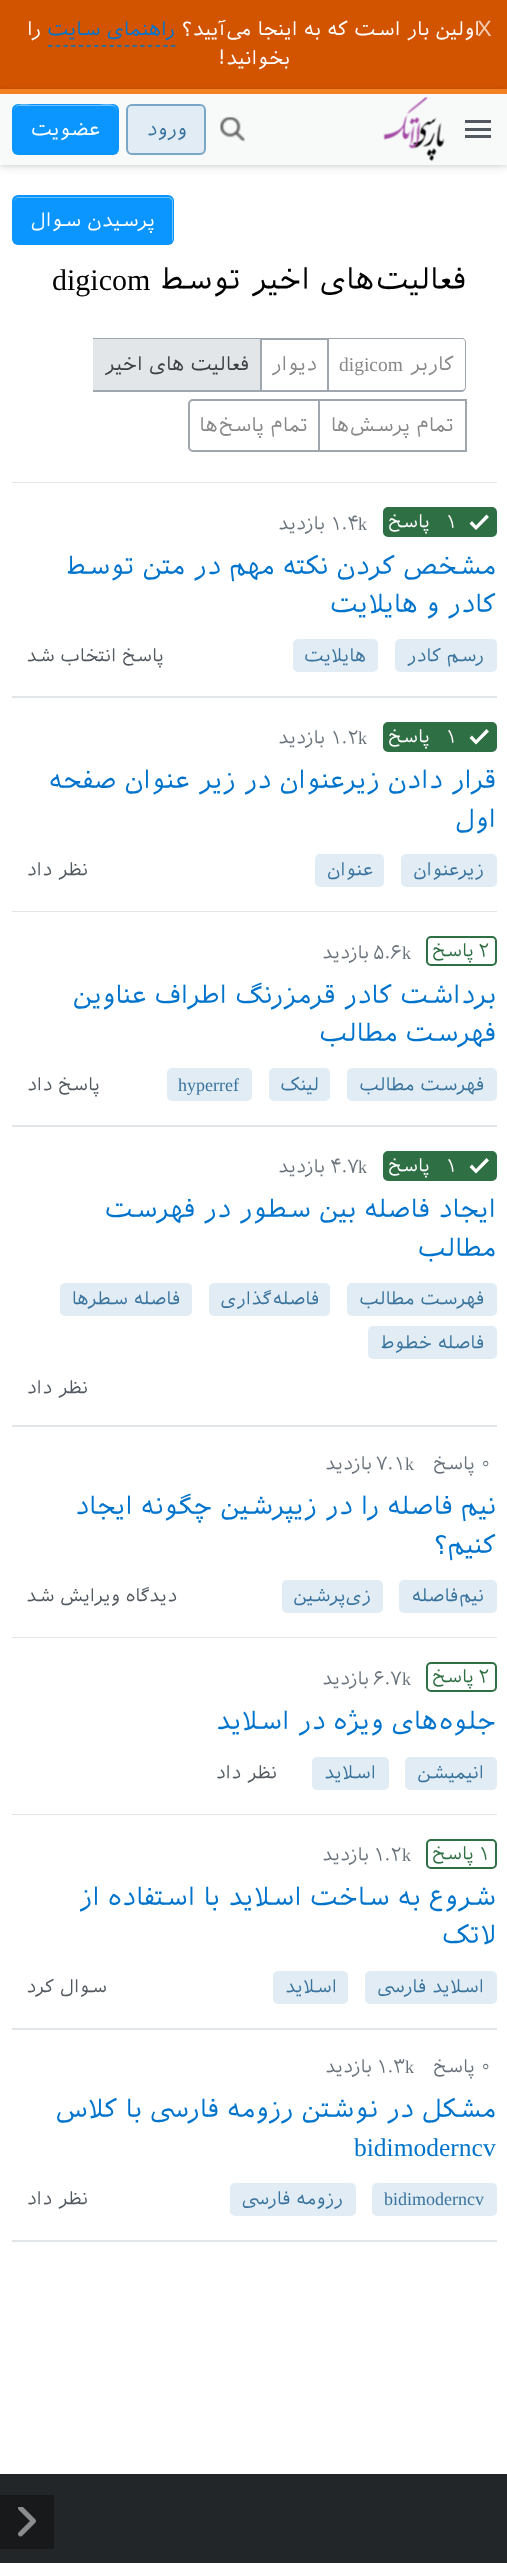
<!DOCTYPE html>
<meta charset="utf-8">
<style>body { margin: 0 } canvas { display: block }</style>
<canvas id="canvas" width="507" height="2563"></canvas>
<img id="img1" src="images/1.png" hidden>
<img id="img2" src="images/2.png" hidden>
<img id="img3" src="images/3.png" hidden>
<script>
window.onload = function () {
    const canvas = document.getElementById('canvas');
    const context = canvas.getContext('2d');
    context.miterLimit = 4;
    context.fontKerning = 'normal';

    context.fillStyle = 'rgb(255, 255, 255)';
    context.fillRect(0, 0, 507, 2563);
    context.fillStyle = 'rgb(211, 84, 0)';
    context.fillRect(0, 0, 507, 89);
    context.beginPath();
    context.moveTo(48, 46);
    context.lineTo(175.5, 46);
    context.strokeStyle = 'rgb(0, 116, 204)';
    context.lineWidth = 1.5;
    context.setLineDash([4.5, 3.18]);
    context.stroke();
    context.fillStyle = 'rgba(0, 0, 0, 0.05)';
    context.filter = 'blur(6px)';
    context.beginPath();
    context.rect(0, 92, 507, 76);
    context.fill();
    context.filter = 'none';
    context.filter = 'blur(3px)';
    context.beginPath();
    context.rect(0, 90, 507, 77);
    context.fill();
    context.filter = 'none';
    context.filter = 'blur(1.5px)';
    context.beginPath();
    context.rect(0, 90, 507, 77);
    context.fill();
    context.filter = 'none';
    context.fillStyle = 'rgb(248, 249, 249)';
    context.fillRect(0, 94, 507, 71);
    context.fillStyle = 'rgb(244, 128, 36)';
    context.fillRect(0, 89, 507, 5);
    context.fillStyle = 'rgb(82, 89, 96)';
    context.fillRect(465, 120, 26, 3);
    context.fillRect(465, 128, 26, 3);
    context.fillRect(465, 135, 26, 3);
    context.drawImage(document.getElementById('img1'), 383, 97, 62, 64);
    context.drawImage(document.getElementById('img2'), 220, 116, 25, 26);
    context.fillStyle = 'rgb(225, 236, 244)';
    context.beginPath();
    context.roundRect(126, 104, 80, 51, 6);
    context.fill();
    context.fillStyle = 'rgb(246, 249, 252)';
    context.beginPath();
    context.moveTo(132, 106);
    context.lineTo(200, 106);
    context.bezierCurveTo(202, 106, 204, 109, 204, 111);
    context.bezierCurveTo(204, 102, 194, 105, 188, 105);
    context.lineTo(144, 105);
    context.bezierCurveTo(138, 105, 128, 102, 128, 111);
    context.bezierCurveTo(128, 109, 130, 106, 132, 106);
    context.closePath();
    context.fill();
    context.beginPath();
    context.roundRect(127, 105, 78, 49, 5);
    context.strokeStyle = 'rgb(122, 167, 199)';
    context.lineWidth = 2;
    context.setLineDash([]);
    context.stroke();
    context.fillStyle = 'rgb(10, 149, 255)';
    context.beginPath();
    context.roundRect(12, 104, 107, 51, 6);
    context.fill();
    context.fillStyle = 'rgb(108, 191, 255)';
    context.beginPath();
    context.moveTo(18, 106);
    context.lineTo(112, 106);
    context.bezierCurveTo(115, 106, 117, 109, 117, 111);
    context.bezierCurveTo(117, 101, 102, 105, 96, 105);
    context.lineTo(34, 105);
    context.bezierCurveTo(29, 105, 14, 101, 14, 111);
    context.bezierCurveTo(14, 109, 16, 106, 18, 106);
    context.closePath();
    context.fill();
    context.fillStyle = 'rgb(227, 230, 232)';
    context.fillRect(12, 482, 485, 1);
    context.fillStyle = 'rgb(10, 149, 255)';
    context.beginPath();
    context.roundRect(12, 195, 162, 50, 6);
    context.fill();
    context.fillStyle = 'rgb(108, 191, 255)';
    context.beginPath();
    context.moveTo(18, 198);
    context.lineTo(168, 198);
    context.bezierCurveTo(170, 198, 172, 200, 172, 202);
    context.lineTo(172, 241);
    context.bezierCurveTo(173, 240, 173, 239, 173, 238);
    context.lineTo(173, 202);
    context.bezierCurveTo(173, 199, 171, 197, 168, 197);
    context.lineTo(19, 197);
    context.bezierCurveTo(16, 197, 14, 199, 14, 202);
    context.bezierCurveTo(14, 200, 16, 198, 18, 198);
    context.closePath();
    context.fill();
    context.fillStyle = 'rgb(159, 166, 173)';
    context.beginPath();
    context.moveTo(328, 338);
    context.lineTo(462, 338);
    context.bezierCurveTo(464, 338, 466, 340, 466, 342);
    context.lineTo(466, 387);
    context.bezierCurveTo(466, 389, 464, 392, 462, 392);
    context.lineTo(328, 392);
    context.closePath();
    context.moveTo(328, 339);
    context.lineTo(462, 339);
    context.bezierCurveTo(464, 339, 465, 340, 465, 342);
    context.lineTo(465, 387);
    context.bezierCurveTo(465, 389, 464, 390, 462, 390);
    context.lineTo(328, 390);
    context.closePath();
    context.fill('evenodd');
    context.fillRect(261, 338, 68, 2);
    context.fillRect(327, 338, 2, 54);
    context.fillRect(261, 390, 68, 2);
    context.fillRect(93, 338, 168, 1);
    context.fillRect(260, 338, 2, 54);
    context.fillRect(93, 390, 168, 2);
    context.fillStyle = 'rgb(227, 230, 232)';
    context.fillRect(93, 339, 167, 51);
    context.fillStyle = 'rgb(159, 166, 173)';
    context.fillRect(320, 399, 147, 2);
    context.fillRect(465, 399, 2, 53);
    context.fillRect(320, 450, 147, 2);
    context.beginPath();
    context.roundRect(189, 400, 130, 51, [4, 0, 0, 4]);
    context.strokeStyle = 'rgb(159, 166, 173)';
    context.stroke();
    context.fillStyle = 'rgb(227, 230, 232)';
    context.fillRect(12, 696, 485, 2);
    context.fillStyle = 'rgb(47, 111, 68)';
    context.beginPath();
    context.roundRect(384, 508, 112, 28, 4);
    context.fill();
    context.strokeStyle = 'rgb(47, 111, 68)';
    context.stroke();
    context.fillStyle = 'rgb(255, 255, 255)';
    context.beginPath();
    context.moveTo(489, 517);
    context.lineTo(486.5, 514.5);
    context.lineTo(476, 525.5);
    context.lineTo(472, 521);
    context.lineTo(469.5, 523.5);
    context.lineTo(476, 530);
    context.closePath();
    context.fill();
    context.fillStyle = 'rgb(225, 236, 244)';
    context.beginPath();
    context.roundRect(395, 639, 102, 33, 5);
    context.fill();
    context.beginPath();
    context.roundRect(293, 639, 85, 33, 5);
    context.fill();
    context.fillStyle = 'rgb(227, 230, 232)';
    context.fillRect(12, 911, 485, 1);
    context.fillStyle = 'rgb(47, 111, 68)';
    context.beginPath();
    context.roundRect(384, 723, 112, 28, 4);
    context.fill();
    context.stroke();
    context.fillStyle = 'rgb(255, 255, 255)';
    context.beginPath();
    context.moveTo(489, 731.5);
    context.lineTo(486.5, 729);
    context.lineTo(476, 740);
    context.lineTo(472, 735.5);
    context.lineTo(469.5, 738);
    context.lineTo(476, 744.5);
    context.closePath();
    context.fill();
    context.fillStyle = 'rgb(225, 236, 244)';
    context.beginPath();
    context.roundRect(401, 854, 96, 33, 5);
    context.fill();
    context.beginPath();
    context.roundRect(315, 854, 69, 33, 5);
    context.fill();
    context.fillStyle = 'rgb(227, 230, 232)';
    context.fillRect(12, 1125, 485, 2);
    context.beginPath();
    context.roundRect(427, 937, 69, 28, 4);
    context.stroke();
    context.fillStyle = 'rgb(225, 236, 244)';
    context.beginPath();
    context.roundRect(347, 1068, 150, 33, 5);
    context.fill();
    context.beginPath();
    context.roundRect(269, 1068, 61, 33, 5);
    context.fill();
    context.beginPath();
    context.roundRect(167, 1068, 85, 33, 5);
    context.fill();
    context.fillStyle = 'rgb(227, 230, 232)';
    context.fillRect(12, 1425, 485, 2);
    context.fillStyle = 'rgb(47, 111, 68)';
    context.beginPath();
    context.roundRect(384, 1152, 112, 28, 4);
    context.fill();
    context.stroke();
    context.fillStyle = 'rgb(255, 255, 255)';
    context.beginPath();
    context.moveTo(489, 1160.5);
    context.lineTo(486.5, 1158);
    context.lineTo(476, 1169);
    context.lineTo(472, 1164.5);
    context.lineTo(469.5, 1167);
    context.lineTo(476, 1173.5);
    context.closePath();
    context.fill();
    context.fillStyle = 'rgb(225, 236, 244)';
    context.beginPath();
    context.roundRect(347, 1283, 150, 33, 5);
    context.fill();
    context.beginPath();
    context.roundRect(209, 1283, 121, 33, 5);
    context.fill();
    context.beginPath();
    context.roundRect(60, 1283, 132, 33, 5);
    context.fill();
    context.beginPath();
    context.roundRect(368, 1326, 129, 33, 5);
    context.fill();
    context.fillStyle = 'rgb(227, 230, 232)';
    context.fillRect(12, 1637, 485, 1);
    context.fillStyle = 'rgb(225, 236, 244)';
    context.beginPath();
    context.roundRect(399, 1580, 98, 33, 5);
    context.fill();
    context.beginPath();
    context.roundRect(282, 1580, 101, 33, 5);
    context.fill();
    context.fillStyle = 'rgb(227, 230, 232)';
    context.fillRect(12, 1814, 485, 1);
    context.beginPath();
    context.roundRect(427, 1663, 69, 28, 4);
    context.stroke();
    context.fillStyle = 'rgb(225, 236, 244)';
    context.beginPath();
    context.roundRect(405, 1757, 92, 33, 5);
    context.fill();
    context.beginPath();
    context.roundRect(312, 1757, 77, 33, 5);
    context.fill();
    context.fillStyle = 'rgb(227, 230, 232)';
    context.fillRect(12, 2028, 485, 2);
    context.beginPath();
    context.roundRect(427, 1840, 69, 28, 4);
    context.stroke();
    context.fillStyle = 'rgb(225, 236, 244)';
    context.beginPath();
    context.roundRect(365, 1971, 132, 33, 5);
    context.fill();
    context.beginPath();
    context.roundRect(273, 1971, 75, 33, 5);
    context.fill();
    context.fillStyle = 'rgb(227, 230, 232)';
    context.fillRect(12, 2240, 485, 2);
    context.fillStyle = 'rgb(225, 236, 244)';
    context.beginPath();
    context.roundRect(372, 2183, 125, 33, 5);
    context.fill();
    context.beginPath();
    context.roundRect(230, 2183, 126, 33, 5);
    context.fill();
    context.fillStyle = 'rgb(35, 38, 41)';
    context.fillRect(0, 2474, 507, 89);
    context.fillStyle = 'rgb(23, 25, 27)';
    context.fillRect(0, 2495, 54, 54);
    context.drawImage(document.getElementById('img3'), 18, 2507, 18, 30);
    context.direction = 'rtl';
    context.font = '19.5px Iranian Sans';
    context.fillStyle = 'rgb(255, 255, 255)';
    context.fillText('اولین بار است که به اینجا می‌آیید؟', 480, 36);
    context.direction = 'ltr';
    context.font = '22px Liberation Sans';
    context.fillStyle = 'rgb(242, 204, 179)';
    context.fillText('X', 477, 36);
    context.direction = 'rtl';
    context.font = '19.5px Iranian Sans';
    context.fillStyle = 'rgb(0, 116, 204)';
    context.fillText('راهنمای سایت', 175, 36);
    context.fillStyle = 'rgb(255, 255, 255)';
    context.fillText('را', 41, 36);
    context.fillText('بخوانید!', 290, 65);
    context.font = '19.25px Iranian Sans';
    context.fillStyle = 'rgb(57, 115, 157)';
    context.fillText('ورود', 187, 136);
    context.fillStyle = 'rgb(255, 255, 255)';
    context.fillText('عضویت', 100, 136);
    context.fillText('پرسیدن سوال', 155, 227);
    context.font = '30px Iranian Sans';
    context.fillStyle = 'rgb(0, 0, 0)';
    context.fillText('فعالیت‌های اخیر توسط', 466, 290);
    context.direction = 'ltr';
    context.font = '30px Liberation Serif';
    context.fillText('digicom', 52, 290);
    context.direction = 'rtl';
    context.font = '19.5px Iranian Sans';
    context.fillStyle = 'rgb(136, 136, 136)';
    context.fillText('کاربر', 454, 371);
    context.direction = 'ltr';
    context.font = '19.5px Liberation Serif';
    context.fillText('digicom', 339, 371);
    context.direction = 'rtl';
    context.font = '19.5px Iranian Sans';
    context.fillText('دیوار', 317, 371);
    context.fillStyle = 'rgb(59, 64, 69)';
    context.fillText('فعالیت های اخیر', 249, 371);
    context.fillStyle = 'rgb(136, 136, 136)';
    context.fillText('تمام پرسش‌ها', 454, 432);
    context.fillText('تمام پاسخ‌ها', 308, 432);
    context.direction = 'ltr';
    context.font = '18px Iranian Sans';
    context.fillStyle = 'rgb(255, 255, 255)';
    context.fillText('۱', 445, 528);
    context.direction = 'rtl';
    context.fillText('پاسخ', 430, 528);
    context.direction = 'ltr';
    context.font = '18px Liberation Serif';
    context.fillStyle = 'rgb(106, 115, 124)';
    context.fillText('k', 358, 530);
    context.font = '18px Iranian Sans';
    context.fillText('۱.۴', 330, 530);
    context.direction = 'rtl';
    context.fillText('بازدید', 325, 530);
    context.font = '25.5px Iranian Sans';
    context.fillStyle = 'rgb(0, 116, 204)';
    context.fillText('مشخص کردن نکته مهم در متن توسط', 496, 575);
    context.fillText('کادر و هایلایت', 496, 613);
    context.font = '18px Iranian Sans';
    context.fillStyle = 'rgb(57, 115, 157)';
    context.fillText('رسم کادر', 484, 662);
    context.fillText('هایلایت', 366, 662);
    context.fillStyle = 'rgb(82, 89, 96)';
    context.fillText('پاسخ انتخاب شد', 164, 662);
    context.direction = 'ltr';
    context.fillStyle = 'rgb(255, 255, 255)';
    context.fillText('۱', 445, 743);
    context.direction = 'rtl';
    context.fillText('پاسخ', 430, 743);
    context.direction = 'ltr';
    context.font = '18px Liberation Serif';
    context.fillStyle = 'rgb(106, 115, 124)';
    context.fillText('k', 358, 744);
    context.font = '18px Iranian Sans';
    context.fillText('۱.۲', 330, 744);
    context.direction = 'rtl';
    context.fillText('بازدید', 325, 744);
    context.font = '25.5px Iranian Sans';
    context.fillStyle = 'rgb(0, 116, 204)';
    context.fillText('قرار دادن زیرعنوان در زیر عنوان صفحه', 496, 789);
    context.fillText('اول', 496, 828);
    context.font = '18px Iranian Sans';
    context.fillStyle = 'rgb(57, 115, 157)';
    context.fillText('زیرعنوان', 484, 876);
    context.fillText('عنوان', 373, 876);
    context.fillStyle = 'rgb(82, 89, 96)';
    context.fillText('نظر داد', 88, 876);
    context.direction = 'ltr';
    context.fillStyle = 'rgb(47, 111, 68)';
    context.fillText('۲', 478, 957);
    context.direction = 'rtl';
    context.fillText('پاسخ', 474, 957);
    context.direction = 'ltr';
    context.font = '18px Liberation Serif';
    context.fillStyle = 'rgb(106, 115, 124)';
    context.fillText('k', 402, 959);
    context.font = '18px Iranian Sans';
    context.fillText('۵.۶', 373, 959);
    context.direction = 'rtl';
    context.fillText('بازدید', 369, 959);
    context.font = '25.5px Iranian Sans';
    context.fillStyle = 'rgb(0, 116, 204)';
    context.fillText('برداشت کادر قرمزرنگ اطراف عناوین', 496, 1004);
    context.fillText('فهرست مطالب', 496, 1042);
    context.font = '18px Iranian Sans';
    context.fillStyle = 'rgb(57, 115, 157)';
    context.fillText('فهرست مطالب', 484, 1091);
    context.fillText('لینک', 319, 1091);
    context.direction = 'ltr';
    context.font = '18px Liberation Serif';
    context.fillText('hyperref', 178, 1091);
    context.direction = 'rtl';
    context.font = '18px Iranian Sans';
    context.fillStyle = 'rgb(82, 89, 96)';
    context.fillText('پاسخ داد', 100, 1091);
    context.direction = 'ltr';
    context.fillStyle = 'rgb(255, 255, 255)';
    context.fillText('۱', 445, 1172);
    context.direction = 'rtl';
    context.fillText('پاسخ', 430, 1172);
    context.direction = 'ltr';
    context.font = '18px Liberation Serif';
    context.fillStyle = 'rgb(106, 115, 124)';
    context.fillText('k', 358, 1173);
    context.font = '18px Iranian Sans';
    context.fillText('۴.۷', 330, 1173);
    context.direction = 'rtl';
    context.fillText('بازدید', 325, 1173);
    context.font = '25.5px Iranian Sans';
    context.fillStyle = 'rgb(0, 116, 204)';
    context.fillText('ایجاد فاصله بین سطور در فهرست', 496, 1218);
    context.fillText('مطالب', 496, 1257);
    context.font = '18px Iranian Sans';
    context.fillStyle = 'rgb(57, 115, 157)';
    context.fillText('فهرست مطالب', 484, 1305);
    context.fillText('فاصله‌گذاری', 319, 1305);
    context.fillText('فاصله سطرها', 180, 1305);
    context.fillText('فاصله خطوط', 484, 1349);
    context.fillStyle = 'rgb(82, 89, 96)';
    context.fillText('نظر داد', 88, 1394);
    context.direction = 'ltr';
    context.fillStyle = 'rgb(106, 115, 124)';
    context.fillText('۰', 480, 1470);
    context.direction = 'rtl';
    context.fillText('پاسخ', 475, 1470);
    context.direction = 'ltr';
    context.font = '18px Liberation Serif';
    context.fillText('k', 405, 1470);
    context.font = '18px Iranian Sans';
    context.fillText('۷.۱', 376, 1470);
    context.direction = 'rtl';
    context.fillText('بازدید', 372, 1470);
    context.font = '25.5px Iranian Sans';
    context.fillStyle = 'rgb(0, 116, 204)';
    context.fillText('نیم فاصله را در زیپرشین چگونه ایجاد', 496, 1515);
    context.fillText('کنیم؟', 496, 1554);
    context.font = '18px Iranian Sans';
    context.fillStyle = 'rgb(57, 115, 157)';
    context.fillText('نیم‌فاصله', 484, 1602);
    context.fillText('زی‌پرشین', 371, 1602);
    context.fillStyle = 'rgb(82, 89, 96)';
    context.fillText('دیدگاه ویرایش شد', 177, 1602);
    context.direction = 'ltr';
    context.fillStyle = 'rgb(47, 111, 68)';
    context.fillText('۲', 478, 1683);
    context.direction = 'rtl';
    context.fillText('پاسخ', 474, 1683);
    context.direction = 'ltr';
    context.font = '18px Liberation Serif';
    context.fillStyle = 'rgb(106, 115, 124)';
    context.fillText('k', 402, 1685);
    context.font = '18px Iranian Sans';
    context.fillText('۶.۷', 373, 1685);
    context.direction = 'rtl';
    context.fillText('بازدید', 369, 1685);
    context.font = '25.5px Iranian Sans';
    context.fillStyle = 'rgb(0, 116, 204)';
    context.fillText('جلوه‌های ویژه در اسلاید', 496, 1730);
    context.font = '18px Iranian Sans';
    context.fillStyle = 'rgb(57, 115, 157)';
    context.fillText('انیمیشن', 484, 1779);
    context.fillText('اسلاید', 376, 1779);
    context.fillStyle = 'rgb(82, 89, 96)';
    context.fillText('نظر داد', 277, 1779);
    context.direction = 'ltr';
    context.fillStyle = 'rgb(47, 111, 68)';
    context.fillText('۱', 478, 1860);
    context.direction = 'rtl';
    context.fillText('پاسخ', 474, 1860);
    context.direction = 'ltr';
    context.font = '18px Liberation Serif';
    context.fillStyle = 'rgb(106, 115, 124)';
    context.fillText('k', 402, 1861);
    context.font = '18px Iranian Sans';
    context.fillText('۱.۲', 373, 1861);
    context.direction = 'rtl';
    context.fillText('بازدید', 369, 1861);
    context.font = '25.5px Iranian Sans';
    context.fillStyle = 'rgb(0, 116, 204)';
    context.fillText('شروع به ساخت اسلاید با استفاده از', 496, 1906);
    context.fillText('لاتک', 496, 1944);
    context.font = '18px Iranian Sans';
    context.fillStyle = 'rgb(57, 115, 157)';
    context.fillText('اسلاید فارسی', 484, 1993);
    context.fillText('اسلاید', 337, 1993);
    context.fillStyle = 'rgb(82, 89, 96)';
    context.fillText('سوال کرد', 107, 1993);
    context.direction = 'ltr';
    context.fillStyle = 'rgb(106, 115, 124)';
    context.fillText('۰', 480, 2073);
    context.direction = 'rtl';
    context.fillText('پاسخ', 475, 2073);
    context.direction = 'ltr';
    context.font = '18px Liberation Serif';
    context.fillText('k', 405, 2073);
    context.font = '18px Iranian Sans';
    context.fillText('۱.۳', 376, 2073);
    context.direction = 'rtl';
    context.fillText('بازدید', 372, 2073);
    context.font = '25.5px Iranian Sans';
    context.fillStyle = 'rgb(0, 116, 204)';
    context.fillText('مشکل در نوشتن رزومه فارسی با کلاس', 496, 2118);
    context.direction = 'ltr';
    context.font = '25.5px Liberation Serif';
    context.fillText('bidimoderncv', 354, 2156);
    context.font = '18px Liberation Serif';
    context.fillStyle = 'rgb(57, 115, 157)';
    context.fillText('bidimoderncv', 384, 2205);
    context.direction = 'rtl';
    context.font = '18px Iranian Sans';
    context.fillText('رزومه فارسی', 343, 2205);
    context.fillStyle = 'rgb(82, 89, 96)';
    context.fillText('نظر داد', 88, 2205);
};
</script>
